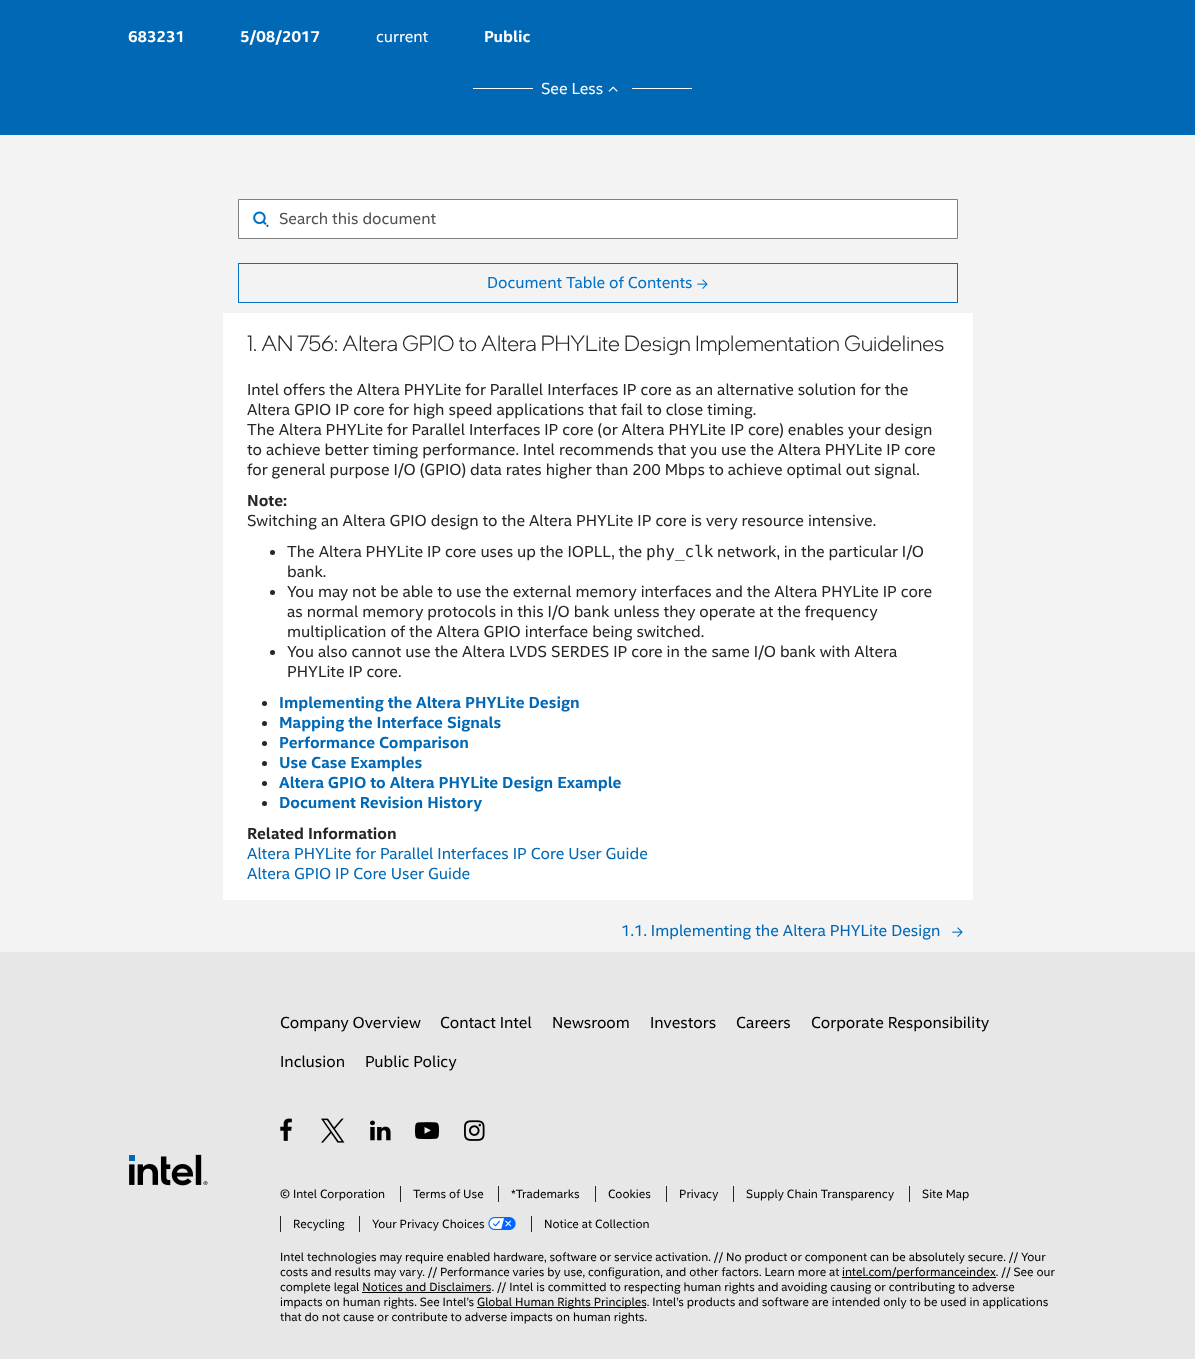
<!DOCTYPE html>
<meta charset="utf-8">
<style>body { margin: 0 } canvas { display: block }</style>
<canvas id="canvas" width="1195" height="1359"></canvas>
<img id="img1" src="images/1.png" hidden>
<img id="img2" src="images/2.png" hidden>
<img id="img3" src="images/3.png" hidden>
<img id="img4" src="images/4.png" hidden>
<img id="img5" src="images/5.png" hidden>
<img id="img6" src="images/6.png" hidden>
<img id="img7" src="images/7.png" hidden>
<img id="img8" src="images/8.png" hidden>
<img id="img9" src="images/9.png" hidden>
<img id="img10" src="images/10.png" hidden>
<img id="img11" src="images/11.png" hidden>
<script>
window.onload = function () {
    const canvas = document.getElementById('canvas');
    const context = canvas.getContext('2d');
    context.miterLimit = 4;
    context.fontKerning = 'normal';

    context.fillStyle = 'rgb(0, 104, 181)';
    context.fillRect(0, 0, 1195, 1359);
    context.fillStyle = 'rgb(255, 255, 255)';
    context.fillRect(473, 88, 60, 1);
    context.drawImage(document.getElementById('img1'), 608, 86, 10, 6);
    context.fillRect(632, 88, 60, 1);
    context.fillStyle = 'rgb(243, 243, 243)';
    context.fillRect(0, 135, 1195, 817);
    context.fillStyle = 'rgb(255, 255, 255)';
    context.beginPath();
    context.rect(238.5, 199.5, 719, 39);
    context.fill();
    context.strokeStyle = 'rgb(128, 128, 128)';
    context.stroke();
    context.drawImage(document.getElementById('img2'), 253, 211, 16, 17);
    context.strokeStyle = 'rgb(0, 113, 197)';
    context.strokeRect(238.5, 263.5, 719, 39);
    context.drawImage(document.getElementById('img3'), 697, 279, 11, 10);
    context.fillRect(223, 313, 750, 587);
    context.fillStyle = 'rgb(38, 38, 38)';
    context.beginPath();
    context.arc(272.5, 552.5, 2.5, 0, 2 * Math.PI);
    context.fill();
    context.beginPath();
    context.arc(272.5, 592.5, 2.5, 0, 2 * Math.PI);
    context.fill();
    context.beginPath();
    context.arc(272.5, 652.5, 2.5, 0, 2 * Math.PI);
    context.fill();
    context.beginPath();
    context.arc(264.5, 703.5, 2.5, 0, 2 * Math.PI);
    context.fill();
    context.beginPath();
    context.arc(264.5, 723.5, 2.5, 0, 2 * Math.PI);
    context.fill();
    context.beginPath();
    context.arc(264.5, 743.5, 2.5, 0, 2 * Math.PI);
    context.fill();
    context.beginPath();
    context.arc(264.5, 763.5, 2.5, 0, 2 * Math.PI);
    context.fill();
    context.beginPath();
    context.arc(264.5, 783.5, 2.5, 0, 2 * Math.PI);
    context.fill();
    context.beginPath();
    context.arc(264.5, 803.5, 2.5, 0, 2 * Math.PI);
    context.fill();
    context.drawImage(document.getElementById('img4'), 952, 927, 11, 10);
    context.fillStyle = 'rgb(231, 231, 231)';
    context.fillRect(0, 952, 1195, 407);
    context.drawImage(document.getElementById('img5'), 129, 1154, 79, 32);
    context.drawImage(document.getElementById('img6'), 280, 1118, 12, 23);
    context.drawImage(document.getElementById('img7'), 321, 1118, 24, 25);
    context.drawImage(document.getElementById('img8'), 370, 1120, 21, 21);
    context.drawImage(document.getElementById('img9'), 415, 1122, 24, 18);
    context.drawImage(document.getElementById('img10'), 464, 1120, 21, 21);
    context.fillStyle = 'rgb(38, 38, 38)';
    context.fillRect(400, 1186, 1, 16);
    context.fillRect(498, 1186, 1, 16);
    context.fillRect(595, 1186, 1, 16);
    context.fillRect(666, 1186, 1, 16);
    context.fillRect(733, 1186, 1, 16);
    context.fillRect(909, 1186, 1, 16);
    context.fillRect(280, 1216, 1, 16);
    context.fillRect(359, 1216, 1, 16);
    context.drawImage(document.getElementById('img11'), 488, 1217, 28, 13);
    context.fillRect(531, 1216, 1, 16);
    context.fillStyle = 'rgb(0, 0, 0)';
    context.fillRect(842, 1277, 154, 1);
    context.fillRect(362, 1292, 129, 1);
    context.fillRect(477, 1307, 169, 1);
    context.font = 'bold 16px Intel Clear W';
    context.fillStyle = 'rgb(255, 255, 255)';
    context.fillText('683231', 128, 42);
    context.fillText('5/08/2017', 240, 42);
    context.font = '16px Intel Clear W';
    context.fillText('current', 376, 42);
    context.font = 'bold 16px Intel Clear W';
    context.fillText('Public', 484, 42);
    context.font = '16px Intel Clear W';
    context.fillText('See Less', 541, 94);
    context.fillStyle = 'rgb(82, 82, 82)';
    context.fillText('Search this document', 279, 224);
    context.fillStyle = 'rgb(0, 113, 197)';
    context.fillText('Document Table of Contents', 487, 288);
    context.font = '300 22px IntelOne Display';
    context.fillStyle = 'rgb(38, 38, 38)';
    context.fillText('1. AN 756: Altera GPIO to Altera PHYLite Design Implementation Guidelines', 247, 351);
    context.font = '16px Intel Clear W';
    context.fillText('Intel offers the Altera PHYLite for Parallel Interfaces IP core as an alternative solution for the', 247, 395);
    context.fillText('Altera GPIO IP core for high speed applications that fail to close timing.', 247, 415);
    context.fillText('The Altera PHYLite for Parallel Interfaces IP core (or Altera PHYLite IP core) enables your design', 247, 435);
    context.fillText('to achieve better timing performance. Intel recommends that you use the Altera PHYLite IP core', 247, 455);
    context.fillText('for general purpose I/O (GPIO) data rates higher than 200 Mbps to achieve optimal out signal.', 247, 475);
    context.font = 'bold 16px Intel Clear W';
    context.fillText('Note:', 247, 506);
    context.font = '16px Intel Clear W';
    context.fillText('Switching an Altera GPIO design to the Altera PHYLite IP core is very resource intensive.', 247, 526);
    context.fillText('The Altera PHYLite IP core uses up the IOPLL, the', 287, 557);
    context.font = '16px DejaVu Sans Mono';
    context.fillText('phy_clk', 646, 557);
    context.font = '16px Intel Clear W';
    context.fillText('network, in the particular I/O', 717, 557);
    context.fillText('bank.', 287, 577);
    context.fillText('You may not be able to use the external memory interfaces and the Altera PHYLite IP core', 287, 597);
    context.fillText('as normal memory protocols in this I/O bank unless they operate at the frequency', 287, 617);
    context.fillText('multiplication of the Altera GPIO interface being switched.', 287, 637);
    context.fillText('You also cannot use the Altera LVDS SERDES IP core in the same I/O bank with Altera', 287, 657);
    context.fillText('PHYLite IP core.', 287, 677);
    context.font = 'bold 16px Intel Clear W';
    context.fillStyle = 'rgb(0, 104, 181)';
    context.fillText('Implementing the Altera PHYLite Design', 279, 708);
    context.fillText('Mapping the Interface Signals', 279, 728);
    context.fillText('Performance Comparison', 279, 748);
    context.fillText('Use Case Examples', 279, 768);
    context.fillText('Altera GPIO to Altera PHYLite Design Example', 279, 788);
    context.fillText('Document Revision History', 279, 808);
    context.fillStyle = 'rgb(38, 38, 38)';
    context.fillText('Related Information', 247, 839);
    context.font = '16px Intel Clear W';
    context.fillStyle = 'rgb(0, 104, 181)';
    context.fillText('Altera PHYLite for Parallel Interfaces IP Core User Guide', 247, 859);
    context.fillText('Altera GPIO IP Core User Guide', 247, 879);
    context.fillText('1.1. Implementing the Altera PHYLite Design', 621, 936);
    context.fillStyle = 'rgb(0, 0, 0)';
    context.fillText('Company Overview', 280, 1028);
    context.fillText('Contact Intel', 440, 1028);
    context.fillText('Newsroom', 552, 1028);
    context.fillText('Investors', 650, 1028);
    context.fillText('Careers', 736, 1028);
    context.fillText('Corporate Responsibility', 811, 1028);
    context.fillText('Inclusion', 280, 1067);
    context.fillText('Public Policy', 365, 1067);
    context.font = '12px Intel Clear W';
    context.fillText('© Intel Corporation', 280, 1198);
    context.fillText('Terms of Use', 413, 1198);
    context.fillText('*Trademarks', 511, 1198);
    context.fillText('Cookies', 608, 1198);
    context.fillText('Privacy', 679, 1198);
    context.fillText('Supply Chain Transparency', 746, 1198);
    context.fillText('Site Map', 922, 1198);
    context.fillText('Recycling', 293, 1228);
    context.fillText('Your Privacy Choices', 372, 1228);
    context.fillText('Notice at Collection', 544, 1228);
    context.fillText('Intel technologies may require enabled hardware, software or service activation. // No product or component can be absolutely secure. // Your', 280, 1261);
    context.fillText('costs and results may vary. // Performance varies by use, configuration, and other factors. Learn more at', 280, 1276);
    context.fillText('intel.com/performanceindex. // See our', 842, 1276);
    context.fillText('complete legal Notices and Disclaimers. // Intel is committed to respecting human rights and avoiding causing or contributing to adverse', 280, 1291);
    context.fillText('impacts on human rights. See Intel’s', 280, 1306);
    context.fillText('Global Human Rights Principles. Intel’s products and software are intended only to be used in applications', 477, 1306);
    context.fillText('that do not cause or contribute to adverse impacts on human rights.', 280, 1321);
};
</script>
